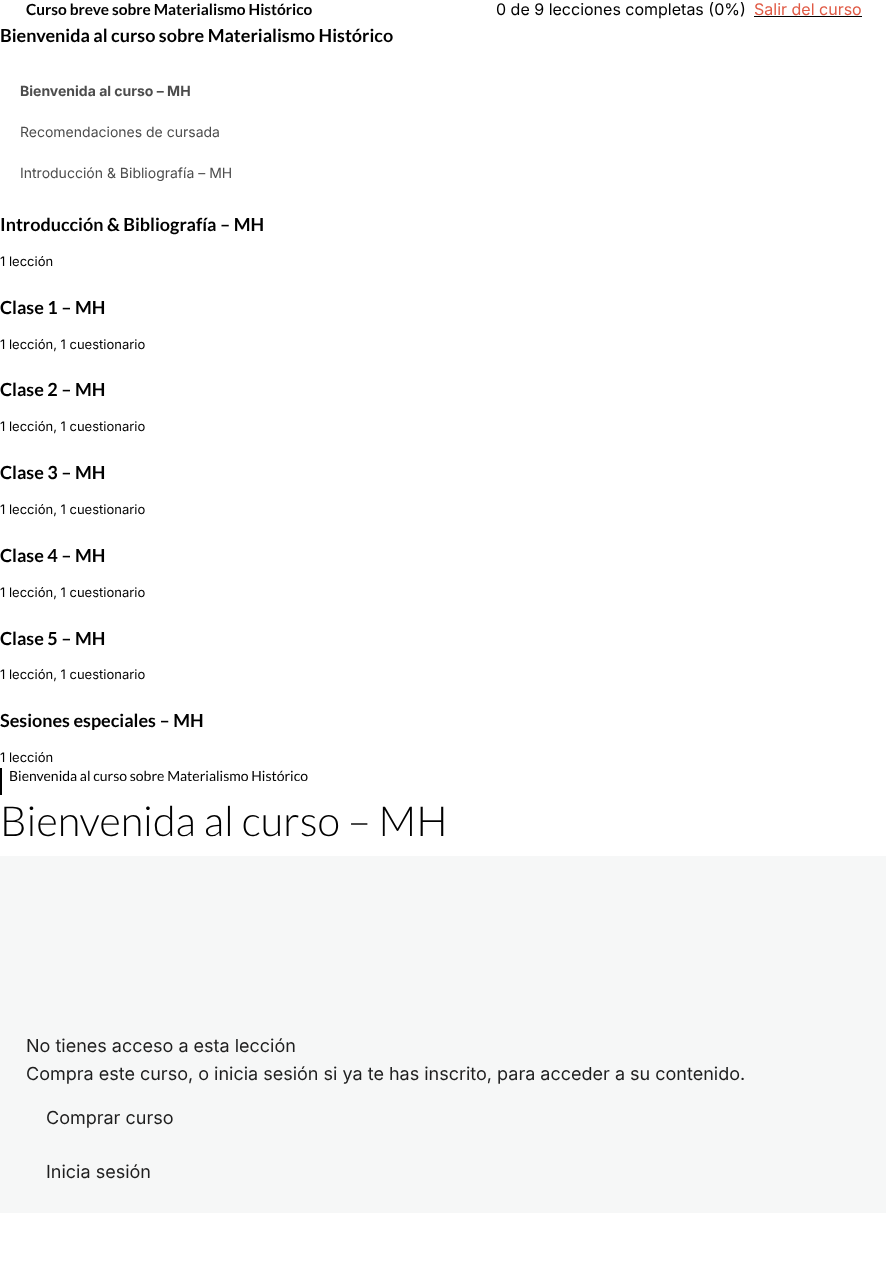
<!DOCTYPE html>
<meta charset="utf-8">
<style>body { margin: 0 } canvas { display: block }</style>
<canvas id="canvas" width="886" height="1275"></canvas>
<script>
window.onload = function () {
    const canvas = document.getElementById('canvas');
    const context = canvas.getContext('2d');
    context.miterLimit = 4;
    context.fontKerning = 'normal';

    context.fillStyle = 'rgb(255, 255, 255)';
    context.fillRect(0, 0, 886, 1275);
    context.fillStyle = 'rgb(0, 0, 0)';
    context.fillRect(754, 16, 108, 1);
    context.fillRect(0, 768, 2, 27);
    context.fillStyle = 'rgb(246, 247, 247)';
    context.fillRect(0, 856, 886, 357);
    context.font = 'bold 15.4px Lato';
    context.fillStyle = 'rgb(0, 0, 0)';
    context.fillText('Curso breve sobre Materialismo Histórico', 26, 15);
    context.font = '16px Inter';
    context.fillText('0 de 9 lecciones completas (0%)', 496, 15);
    context.fillStyle = 'rgb(224, 90, 69)';
    context.fillText('Salir del curso', 754, 15);
    context.font = 'bold 18px Lato';
    context.fillStyle = 'rgb(0, 0, 0)';
    context.fillText('Bienvenida al curso sobre Materialismo Histórico', 0, 42);
    context.font = 'bold 14px Inter';
    context.fillStyle = 'rgb(77, 77, 77)';
    context.fillText('Bienvenida al curso – MH', 20, 96);
    context.font = '14px Inter';
    context.fillText('Recomendaciones de cursada', 20, 137);
    context.fillText('Introducción & Bibliografía – MH', 20, 178);
    context.font = 'bold 18px Lato';
    context.fillStyle = 'rgb(0, 0, 0)';
    context.fillText('Introducción & Bibliografía – MH', 0, 231);
    context.font = '13px Inter';
    context.fillText('1 lección', 0, 266);
    context.font = 'bold 18px Lato';
    context.fillText('Clase 1 – MH', 0, 314);
    context.font = '13px Inter';
    context.fillText('1 lección, 1 cuestionario', 0, 349);
    context.font = 'bold 18px Lato';
    context.fillText('Clase 2 – MH', 0, 396);
    context.font = '13px Inter';
    context.fillText('1 lección, 1 cuestionario', 0, 431);
    context.font = 'bold 18px Lato';
    context.fillText('Clase 3 – MH', 0, 479);
    context.font = '13px Inter';
    context.fillText('1 lección, 1 cuestionario', 0, 514);
    context.font = 'bold 18px Lato';
    context.fillText('Clase 4 – MH', 0, 562);
    context.font = '13px Inter';
    context.fillText('1 lección, 1 cuestionario', 0, 597);
    context.font = 'bold 18px Lato';
    context.fillText('Clase 5 – MH', 0, 645);
    context.font = '13px Inter';
    context.fillText('1 lección, 1 cuestionario', 0, 679);
    context.font = 'bold 18px Lato';
    context.fillText('Sesiones especiales – MH', 0, 727);
    context.font = '13px Inter';
    context.fillText('1 lección', 0, 762);
    context.font = '14px Lato';
    context.fillText('Bienvenida al curso sobre Materialismo Histórico', 9, 781);
    context.font = '300 41.5px Lato';
    context.fillText('Bienvenida al curso – MH', 0, 836);
    context.font = '18px Inter';
    context.fillStyle = 'rgb(30, 30, 30)';
    context.fillText('No tienes acceso a esta lección', 26, 1052);
    context.fillText('Compra este curso, o inicia sesión si ya te has inscrito, para acceder a su contenido.', 26, 1080);
    context.fillText('Comprar curso', 46, 1124);
    context.fillText('Inicia sesión', 46, 1178);
};
</script>
